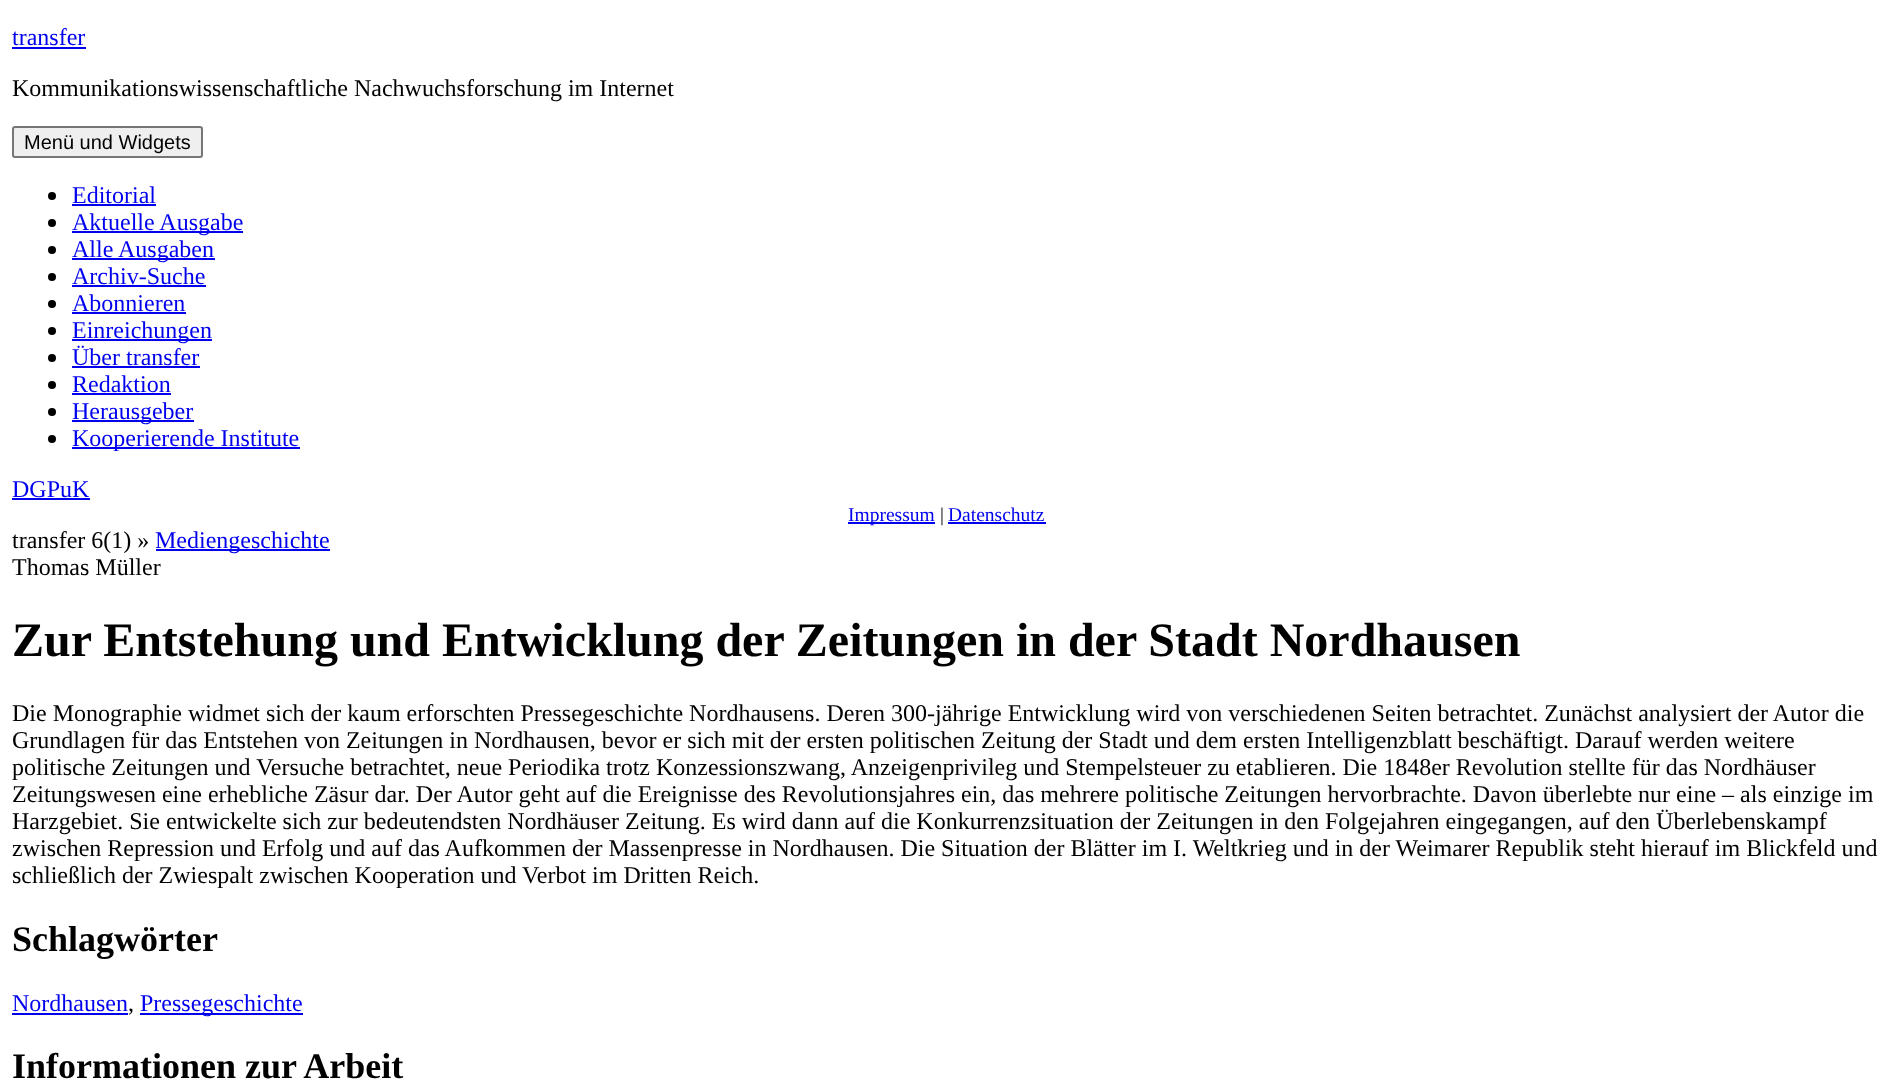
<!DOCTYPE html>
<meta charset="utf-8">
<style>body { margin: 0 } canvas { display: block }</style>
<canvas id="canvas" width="1892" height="1091"></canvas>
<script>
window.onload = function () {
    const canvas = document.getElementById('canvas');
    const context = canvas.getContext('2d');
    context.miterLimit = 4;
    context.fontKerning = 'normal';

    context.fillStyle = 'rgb(255, 255, 255)';
    context.fillRect(0, 0, 1892, 1091);
    context.fillStyle = 'rgb(0, 0, 238)';
    context.fillRect(12, 47, 74, 2);
    context.fillStyle = 'rgb(239, 239, 239)';
    context.beginPath();
    context.roundRect(13, 127, 189, 30, 2);
    context.fill();
    context.strokeStyle = 'rgb(118, 118, 118)';
    context.lineWidth = 2;
    context.stroke();
    context.fillStyle = 'rgb(0, 0, 0)';
    context.beginPath();
    context.arc(52, 196, 4, 0, 2 * Math.PI);
    context.fill();
    context.fillStyle = 'rgb(0, 0, 238)';
    context.fillRect(72, 204, 84, 2);
    context.fillStyle = 'rgb(0, 0, 0)';
    context.beginPath();
    context.arc(52, 223, 4, 0, 2 * Math.PI);
    context.fill();
    context.fillStyle = 'rgb(0, 0, 238)';
    context.fillRect(72, 231, 171, 2);
    context.fillStyle = 'rgb(0, 0, 0)';
    context.beginPath();
    context.arc(52, 250, 4, 0, 2 * Math.PI);
    context.fill();
    context.fillStyle = 'rgb(0, 0, 238)';
    context.fillRect(72, 258, 143, 2);
    context.fillStyle = 'rgb(0, 0, 0)';
    context.beginPath();
    context.arc(52, 277, 4, 0, 2 * Math.PI);
    context.fill();
    context.fillStyle = 'rgb(0, 0, 238)';
    context.fillRect(72, 285, 134, 2);
    context.fillStyle = 'rgb(0, 0, 0)';
    context.beginPath();
    context.arc(52, 304, 4, 0, 2 * Math.PI);
    context.fill();
    context.fillStyle = 'rgb(0, 0, 238)';
    context.fillRect(72, 312, 114, 2);
    context.fillStyle = 'rgb(0, 0, 0)';
    context.beginPath();
    context.arc(52, 331, 4, 0, 2 * Math.PI);
    context.fill();
    context.fillStyle = 'rgb(0, 0, 238)';
    context.fillRect(72, 339, 140, 2);
    context.fillStyle = 'rgb(0, 0, 0)';
    context.beginPath();
    context.arc(52, 358, 4, 0, 2 * Math.PI);
    context.fill();
    context.fillStyle = 'rgb(0, 0, 238)';
    context.fillRect(72, 366, 128, 2);
    context.fillStyle = 'rgb(0, 0, 0)';
    context.beginPath();
    context.arc(52, 385, 4, 0, 2 * Math.PI);
    context.fill();
    context.fillStyle = 'rgb(0, 0, 238)';
    context.fillRect(72, 393, 99, 2);
    context.fillStyle = 'rgb(0, 0, 0)';
    context.beginPath();
    context.arc(52, 412, 4, 0, 2 * Math.PI);
    context.fill();
    context.fillStyle = 'rgb(0, 0, 238)';
    context.fillRect(72, 420, 122, 2);
    context.fillStyle = 'rgb(0, 0, 0)';
    context.beginPath();
    context.arc(52, 439, 4, 0, 2 * Math.PI);
    context.fill();
    context.fillStyle = 'rgb(0, 0, 238)';
    context.fillRect(72, 447, 228, 2);
    context.fillRect(12, 498, 78, 2);
    context.fillRect(848, 522, 87, 2);
    context.fillRect(948, 522, 98, 2);
    context.fillRect(156, 549, 174, 2);
    context.fillRect(12, 1013, 116, 2);
    context.fillRect(140, 1013, 163, 2);
    context.font = '24px Liberation Serif';
    context.fillText('transfer', 12, 45);
    context.fillStyle = 'rgb(0, 0, 0)';
    context.fillText('Kommunikationswissenschaftliche Nachwuchsforschung im Internet', 12, 96);
    context.font = '20px Liberation Sans';
    context.fillText('Menü und Widgets', 24, 149);
    context.font = '24px Liberation Serif';
    context.fillStyle = 'rgb(0, 0, 238)';
    context.fillText('Editorial', 72, 203);
    context.fillText('Aktuelle Ausgabe', 72, 230);
    context.fillText('Alle Ausgaben', 72, 257);
    context.fillText('Archiv-Suche', 72, 284);
    context.fillText('Abonnieren', 72, 311);
    context.fillText('Einreichungen', 72, 338);
    context.fillText('Über transfer', 72, 365);
    context.fillText('Redaktion', 72, 392);
    context.fillText('Herausgeber', 72, 419);
    context.fillText('Kooperierende Institute', 72, 446);
    context.fillText('DGPuK', 12, 497);
    context.font = '19.5px Liberation Serif';
    context.fillText('Impressum', 848, 521);
    context.fillStyle = 'rgb(0, 0, 0)';
    context.fillText('|', 940, 521);
    context.fillStyle = 'rgb(0, 0, 238)';
    context.fillText('Datenschutz', 948, 521);
    context.font = '24px Liberation Serif';
    context.fillStyle = 'rgb(0, 0, 0)';
    context.fillText('transfer 6(1) »', 12, 548);
    context.fillStyle = 'rgb(0, 0, 238)';
    context.fillText('Mediengeschichte', 155, 548);
    context.fillStyle = 'rgb(0, 0, 0)';
    context.fillText('Thomas Müller', 12, 575);
    context.font = 'bold 48px Liberation Serif';
    context.fillText('Zur Entstehung und Entwicklung der Zeitungen in der Stadt Nordhausen', 12, 656);
    context.font = '24px Liberation Serif';
    context.fillText('Die Monographie widmet sich der kaum erforschten Pressegeschichte Nordhausens. Deren 300-jährige Entwicklung wird von verschiedenen Seiten betrachtet. Zunächst analysiert der Autor die', 12, 721);
    context.fillText('Grundlagen für das Entstehen von Zeitungen in Nordhausen, bevor er sich mit der ersten politischen Zeitung der Stadt und dem ersten Intelligenzblatt beschäftigt. Darauf werden weitere', 12, 748);
    context.fillText('politische Zeitungen und Versuche betrachtet, neue Periodika trotz Konzessionszwang, Anzeigenprivileg und Stempelsteuer zu etablieren. Die 1848er Revolution stellte für das Nordhäuser', 12, 775);
    context.fillText('Zeitungswesen eine erhebliche Zäsur dar. Der Autor geht auf die Ereignisse des Revolutionsjahres ein, das mehrere politische Zeitungen hervorbrachte. Davon überlebte nur eine – als einzige im', 12, 802);
    context.fillText('Harzgebiet. Sie entwickelte sich zur bedeutendsten Nordhäuser Zeitung. Es wird dann auf die Konkurrenzsituation der Zeitungen in den Folgejahren eingegangen, auf den Überlebenskampf', 12, 829);
    context.fillText('zwischen Repression und Erfolg und auf das Aufkommen der Massenpresse in Nordhausen. Die Situation der Blätter im I. Weltkrieg und in der Weimarer Republik steht hierauf im Blickfeld und', 12, 856);
    context.fillText('schließlich der Zwiespalt zwischen Kooperation und Verbot im Dritten Reich.', 12, 883);
    context.font = 'bold 36px Liberation Serif';
    context.fillText('Schlagwörter', 12, 951);
    context.font = '24px Liberation Serif';
    context.fillStyle = 'rgb(0, 0, 238)';
    context.fillText('Nordhausen', 12, 1011);
    context.fillStyle = 'rgb(0, 0, 0)';
    context.fillText(',', 128, 1011);
    context.fillStyle = 'rgb(0, 0, 238)';
    context.fillText('Pressegeschichte', 140, 1011);
    context.font = 'bold 36px Liberation Serif';
    context.fillStyle = 'rgb(0, 0, 0)';
    context.fillText('Informationen zur Arbeit', 12, 1078);
};
</script>
